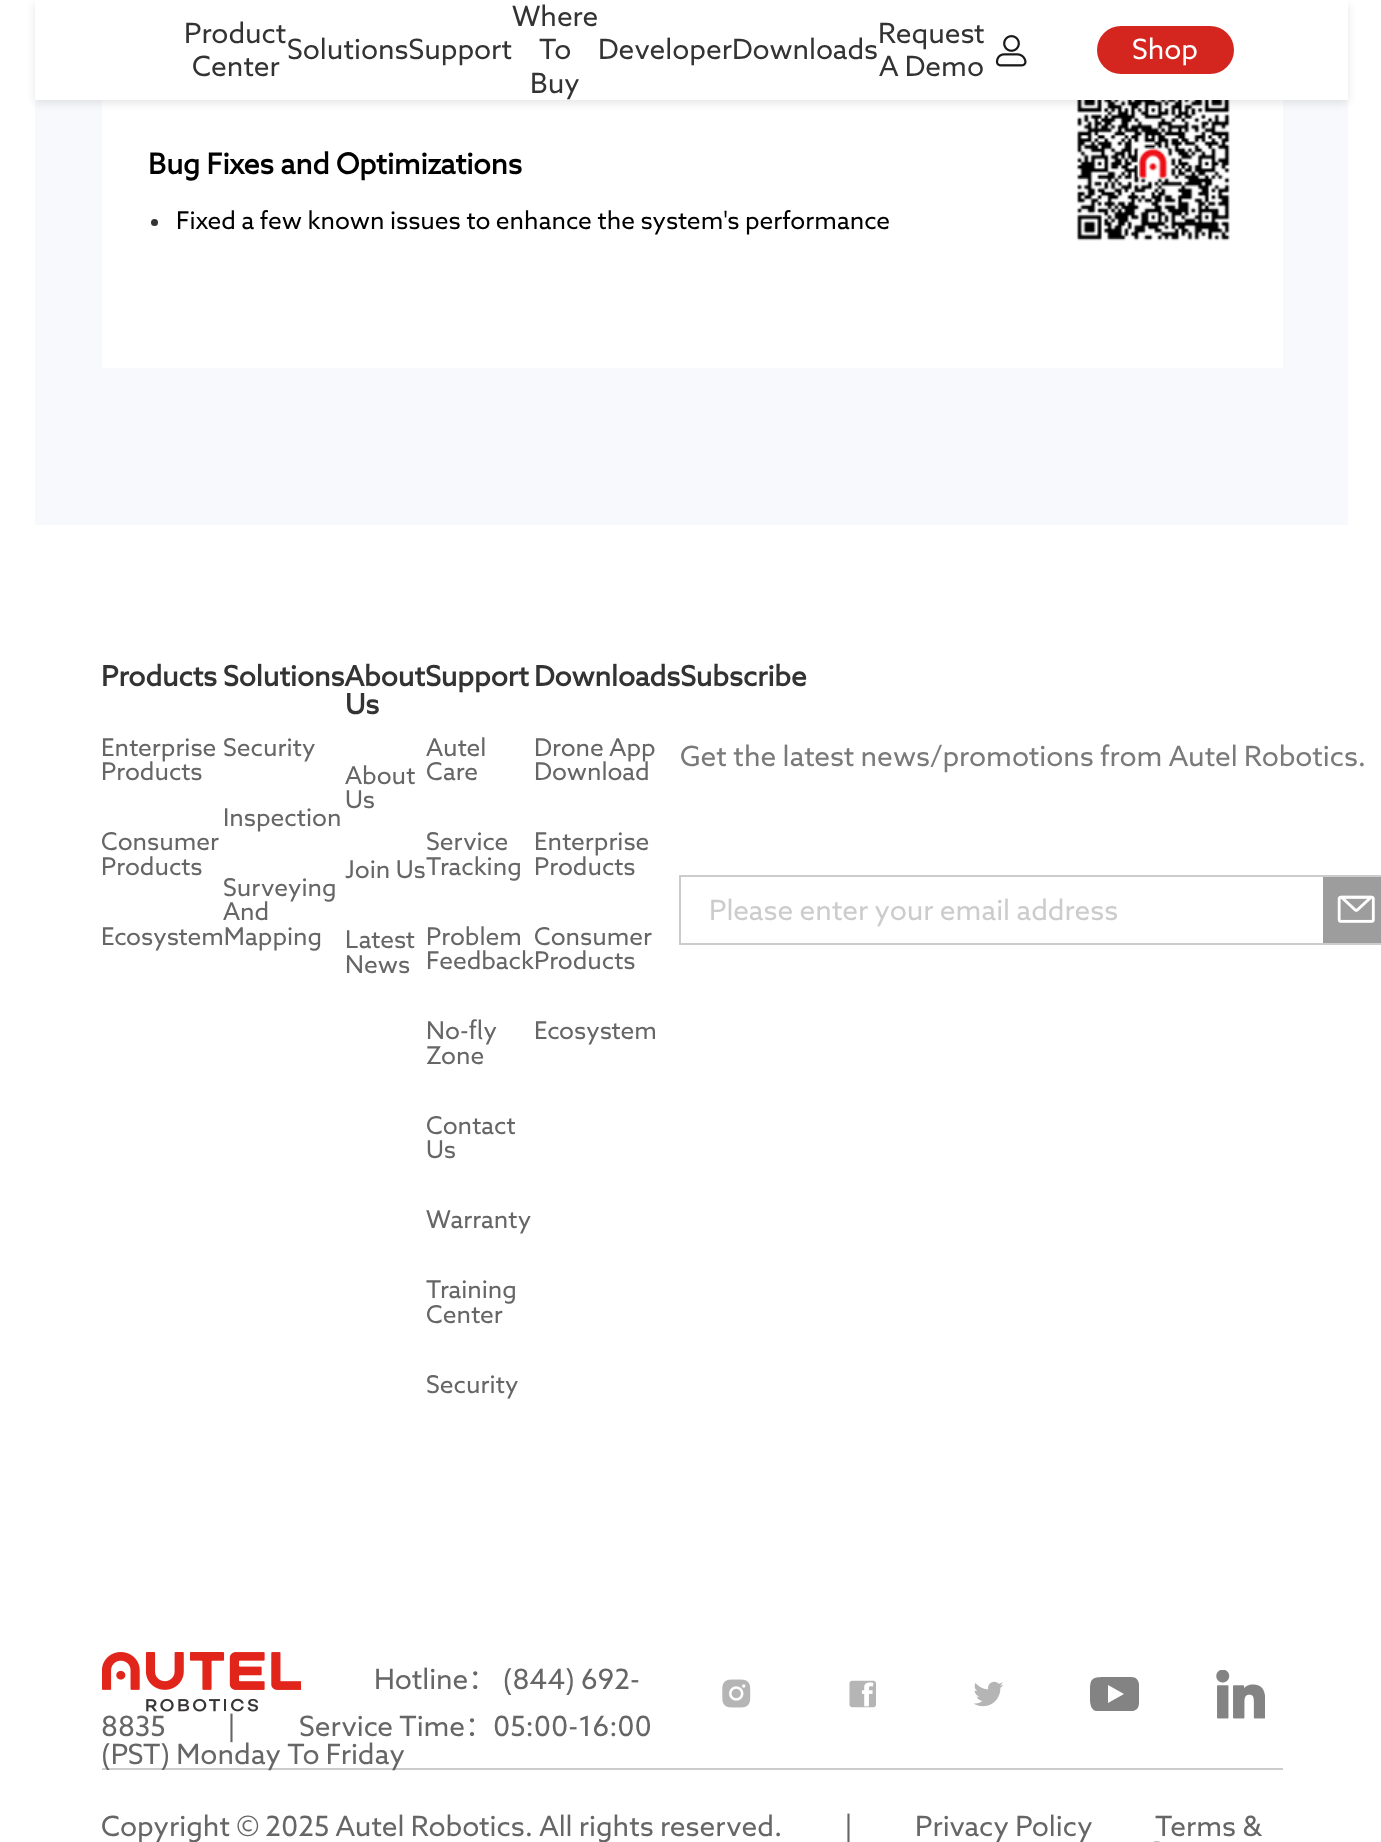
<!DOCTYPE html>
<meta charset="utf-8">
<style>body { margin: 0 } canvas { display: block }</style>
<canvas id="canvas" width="1381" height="1842"></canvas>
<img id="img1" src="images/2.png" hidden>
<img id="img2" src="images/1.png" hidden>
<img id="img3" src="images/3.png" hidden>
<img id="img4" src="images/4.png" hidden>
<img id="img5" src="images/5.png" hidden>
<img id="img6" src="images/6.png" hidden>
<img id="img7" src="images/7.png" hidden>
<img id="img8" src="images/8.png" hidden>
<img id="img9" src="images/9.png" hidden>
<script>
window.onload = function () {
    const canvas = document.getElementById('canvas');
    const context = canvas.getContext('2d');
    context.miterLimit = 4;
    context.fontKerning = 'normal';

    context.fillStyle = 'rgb(255, 255, 255)';
    context.fillRect(0, 0, 1381, 1842);
    context.fillStyle = 'rgb(247, 249, 252)';
    context.fillRect(35, 100, 1313, 425);
    context.fillStyle = 'rgb(255, 255, 255)';
    context.fillRect(102, 100, 1181, 268);
    context.drawImage(document.getElementById('img1'), 1076, 100, 154, 141);
    context.fillStyle = 'rgba(0, 0, 0, 0.1)';
    context.filter = 'blur(4.5px)';
    context.beginPath();
    context.rect(35, 4, 1313, 99);
    context.fill();
    context.filter = 'none';
    context.fillStyle = 'rgb(255, 255, 255)';
    context.fillRect(35, 0, 1313, 100);
    context.drawImage(document.getElementById('img2'), 995, 35, 32, 32);
    context.fillStyle = 'rgb(212, 37, 31)';
    context.beginPath();
    context.roundRect(1097, 26, 137, 48, 24);
    context.fill();
    context.fillStyle = 'rgb(51, 51, 51)';
    context.beginPath();
    context.arc(154.5, 222.5, 3.5, 0, 2 * Math.PI);
    context.fill();
    context.strokeStyle = 'rgb(204, 204, 204)';
    context.lineWidth = 2;
    context.strokeRect(680, 876, 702, 68);
    context.fillStyle = 'rgb(157, 157, 157)';
    context.fillRect(1323, 877, 58, 66);
    context.drawImage(document.getElementById('img3'), 1337, 895, 38, 28);
    context.fillStyle = 'rgb(204, 204, 204)';
    context.fillRect(102, 1768, 1181, 2);
    context.drawImage(document.getElementById('img4'), 102, 1652, 199, 60);
    context.drawImage(document.getElementById('img5'), 722, 1679, 29, 29);
    context.drawImage(document.getElementById('img6'), 849, 1680, 27, 28);
    context.drawImage(document.getElementById('img7'), 973, 1681, 30, 26);
    context.save();
    context.beginPath();
    context.rect(1090, 1670, 49, 49);
    context.clip();
    context.fillStyle = 'rgb(131, 131, 131)';
    context.beginPath();
    context.moveTo(1131, 1677);
    context.lineTo(1104, 1677);
    context.bezierCurveTo(1090, 1677, 1090, 1680, 1090, 1694);
    context.bezierCurveTo(1090, 1699, 1089, 1709, 1096, 1711);
    context.lineTo(1131, 1711);
    context.bezierCurveTo(1141, 1711, 1139, 1701, 1139, 1694);
    context.bezierCurveTo(1139, 1687, 1141, 1677, 1131, 1677);
    context.closePath();
    context.moveTo(1108, 1703);
    context.lineTo(1108, 1685);
    context.lineTo(1124, 1694);
    context.closePath();
    context.fill();
    context.restore();
    context.drawImage(document.getElementById('img8'), 1216, 1670, 49, 49);
    context.drawImage(document.getElementById('img9'), 1153, 1841, 7, 1);
    context.font = '28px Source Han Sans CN';
    context.fillStyle = 'rgb(51, 51, 51)';
    context.fillText('Product', 184, 43);
    context.fillText('Center', 192, 76);
    context.fillText('SolutionsSupport', 287, 59);
    context.fillText('Where', 512, 26);
    context.fillText('To', 539, 59);
    context.fillText('Buy', 530, 93);
    context.fillText('DeveloperDownloads', 598, 59);
    context.fillText('Request', 878, 43);
    context.fillText('A Demo', 879, 76);
    context.fillStyle = 'rgb(255, 255, 255)';
    context.fillText('Shop', 1132, 59);
    context.font = 'bold 28.7px Source Han Sans CN';
    context.fillStyle = 'rgb(0, 0, 0)';
    context.fillText('Bug Fixes and Optimizations', 148, 174);
    context.font = '24.5px Source Han Sans CN';
    context.fillText('Fixed a few known issues to enhance the system\'s performance', 176, 229);
    context.font = 'bold 28px Source Han Sans CN';
    context.fillStyle = 'rgb(51, 51, 51)';
    context.fillText('Products', 101, 686);
    context.font = '24.5px Source Han Sans CN';
    context.fillStyle = 'rgb(102, 102, 102)';
    context.fillText('Enterprise', 101, 756);
    context.fillText('Products', 101, 780);
    context.fillText('Consumer', 101, 850);
    context.fillText('Products', 101, 875);
    context.fillText('EcosystemMapping', 101, 945);
    context.font = 'bold 28px Source Han Sans CN';
    context.fillStyle = 'rgb(51, 51, 51)';
    context.fillText('SolutionsAboutSupport', 223, 686);
    context.font = '24.5px Source Han Sans CN';
    context.fillStyle = 'rgb(102, 102, 102)';
    context.fillText('Security', 223, 756);
    context.fillText('Inspection', 223, 826);
    context.fillText('Surveying', 223, 896);
    context.fillText('And', 223, 920);
    context.font = 'bold 28px Source Han Sans CN';
    context.fillStyle = 'rgb(51, 51, 51)';
    context.fillText('DownloadsSubscribe', 534, 686);
    context.font = '24.5px Source Han Sans CN';
    context.fillStyle = 'rgb(102, 102, 102)';
    context.fillText('Drone App', 534, 756);
    context.fillText('Download', 534, 780);
    context.fillText('Enterprise', 534, 850);
    context.fillText('Products', 534, 875);
    context.fillText('Consumer', 534, 945);
    context.fillText('Ecosystem', 534, 1039);
    context.font = 'bold 28px Source Han Sans CN';
    context.fillStyle = 'rgb(51, 51, 51)';
    context.fillText('Us', 345, 714);
    context.font = '24.5px Source Han Sans CN';
    context.fillStyle = 'rgb(102, 102, 102)';
    context.fillText('About', 345, 784);
    context.fillText('Us', 345, 808);
    context.fillText('Join Us', 345, 878);
    context.fillText('Latest', 345, 948);
    context.fillText('News', 345, 973);
    context.fillText('Autel', 426, 756);
    context.fillText('Care', 426, 780);
    context.fillText('Service', 426, 850);
    context.fillText('Tracking', 426, 875);
    context.fillText('Problem', 426, 945);
    context.fillText('FeedbackProducts', 426, 969);
    context.fillText('No-fly', 426, 1039);
    context.fillText('Zone', 426, 1064);
    context.fillText('Contact', 426, 1134);
    context.fillText('Us', 426, 1158);
    context.fillText('Warranty', 426, 1228);
    context.fillText('Training', 426, 1298);
    context.fillText('Center', 426, 1323);
    context.fillText('Security', 426, 1393);
    context.font = '28px Source Han Sans CN';
    context.fillStyle = 'rgb(122, 122, 122)';
    context.fillText('Get the latest news/promotions from Autel Robotics.', 680, 766);
    context.fillStyle = 'rgb(204, 204, 204)';
    context.fillText('Please enter your email address', 709, 920);
    context.fillStyle = 'rgb(102, 102, 102)';
    context.fillText('Hotline： (844) 692-', 374, 1689);
    context.fillText('8835', 101, 1736);
    context.fillText('|', 227, 1736);
    context.fillText('Service Time：05:00-16:00', 299, 1736);
    context.fillText('(PST) Monday To Friday', 101, 1764);
    context.fillText('Copyright © 2025 Autel Robotics. All rights reserved.', 101, 1836);
    context.fillText('|', 844, 1836);
    context.fillText('Privacy Policy', 915, 1836);
    context.fillText('Terms &', 1155, 1836);
};
</script>
